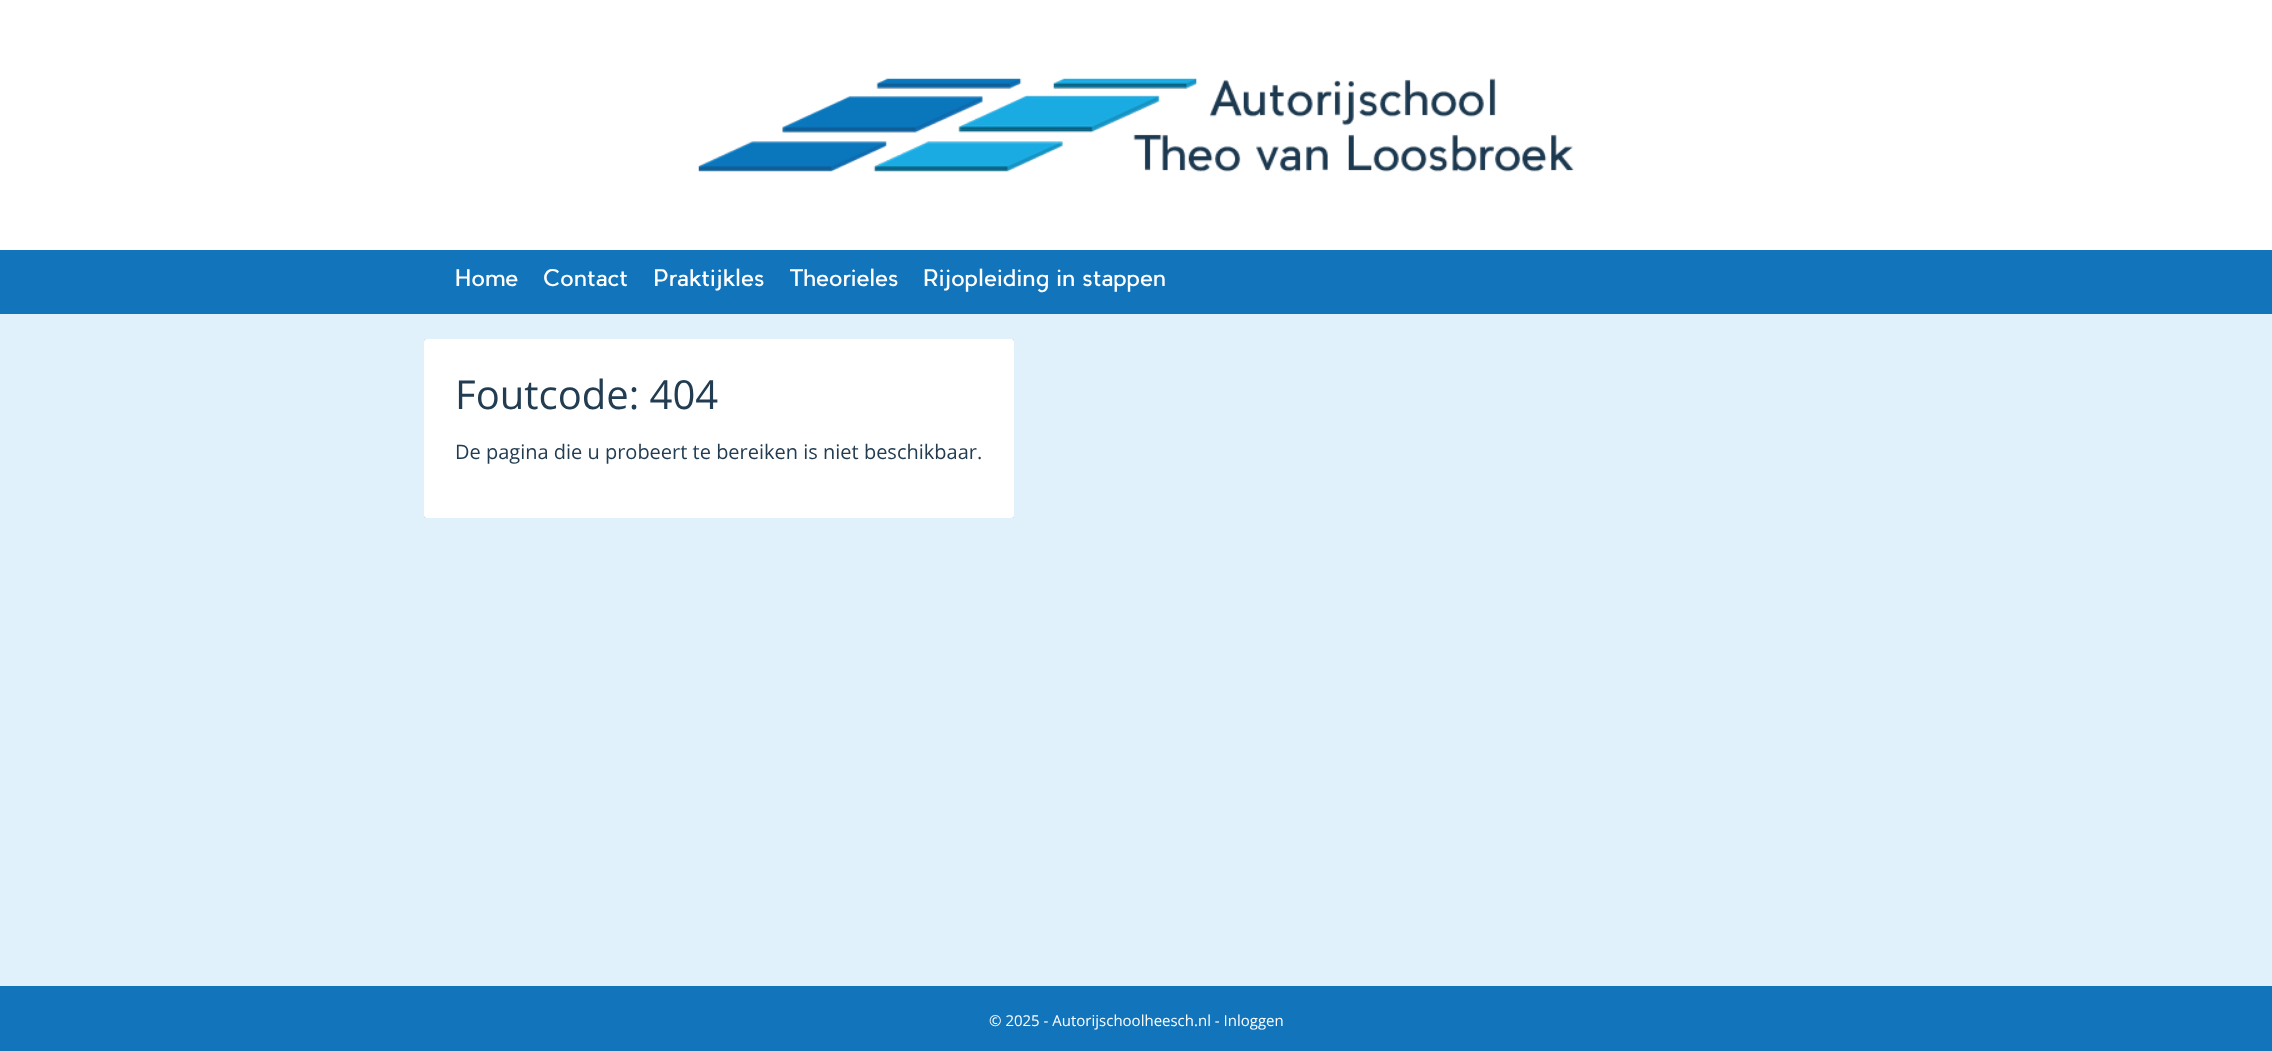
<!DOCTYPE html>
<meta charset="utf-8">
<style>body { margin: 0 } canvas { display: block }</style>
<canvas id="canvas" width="2272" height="1051"></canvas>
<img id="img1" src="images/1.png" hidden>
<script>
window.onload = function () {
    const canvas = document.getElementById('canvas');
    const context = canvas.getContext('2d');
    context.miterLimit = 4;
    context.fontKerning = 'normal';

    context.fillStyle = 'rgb(255, 255, 255)';
    context.fillRect(0, 0, 2272, 1051);
    context.drawImage(document.getElementById('img1'), 698, 78, 876, 94);
    context.fillStyle = 'rgb(18, 117, 187)';
    context.fillRect(0, 250, 2272, 64);
    context.fillStyle = 'rgb(225, 241, 252)';
    context.fillRect(0, 314, 2272, 672);
    context.fillStyle = 'rgba(34, 60, 81, 0.5)';
    context.filter = 'blur(0.5px)';
    context.beginPath();
    context.roundRect(424, 339, 590, 179, 2.5);
    context.fill();
    context.filter = 'none';
    context.fillStyle = 'rgb(255, 255, 255)';
    context.beginPath();
    context.roundRect(424, 339, 590, 179, 2.5);
    context.fill();
    context.fillStyle = 'rgb(18, 117, 187)';
    context.fillRect(0, 986, 2272, 65);
    context.font = '22.5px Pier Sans';
    context.fillStyle = 'rgb(255, 255, 255)';
    context.fillText('Home', 455, 286);
    context.fillText('Contact', 543, 286);
    context.fillText('Praktijkles', 653, 286);
    context.fillText('Theorieles', 790, 286);
    context.fillText('Rijopleiding in stappen', 923, 286);
    context.font = '40px Open Sans';
    context.fillStyle = 'rgb(34, 60, 81)';
    context.fillText('Foutcode: 404', 455, 409);
    context.font = '20px Open Sans';
    context.fillText('De pagina die u probeert te bereiken is niet beschikbaar.', 455, 459);
    context.font = '15px Open Sans';
    context.fillStyle = 'rgb(255, 255, 255)';
    context.fillText('© 2025 - Autorijschoolheesch.nl - Inloggen', 989, 1026);
};
</script>
